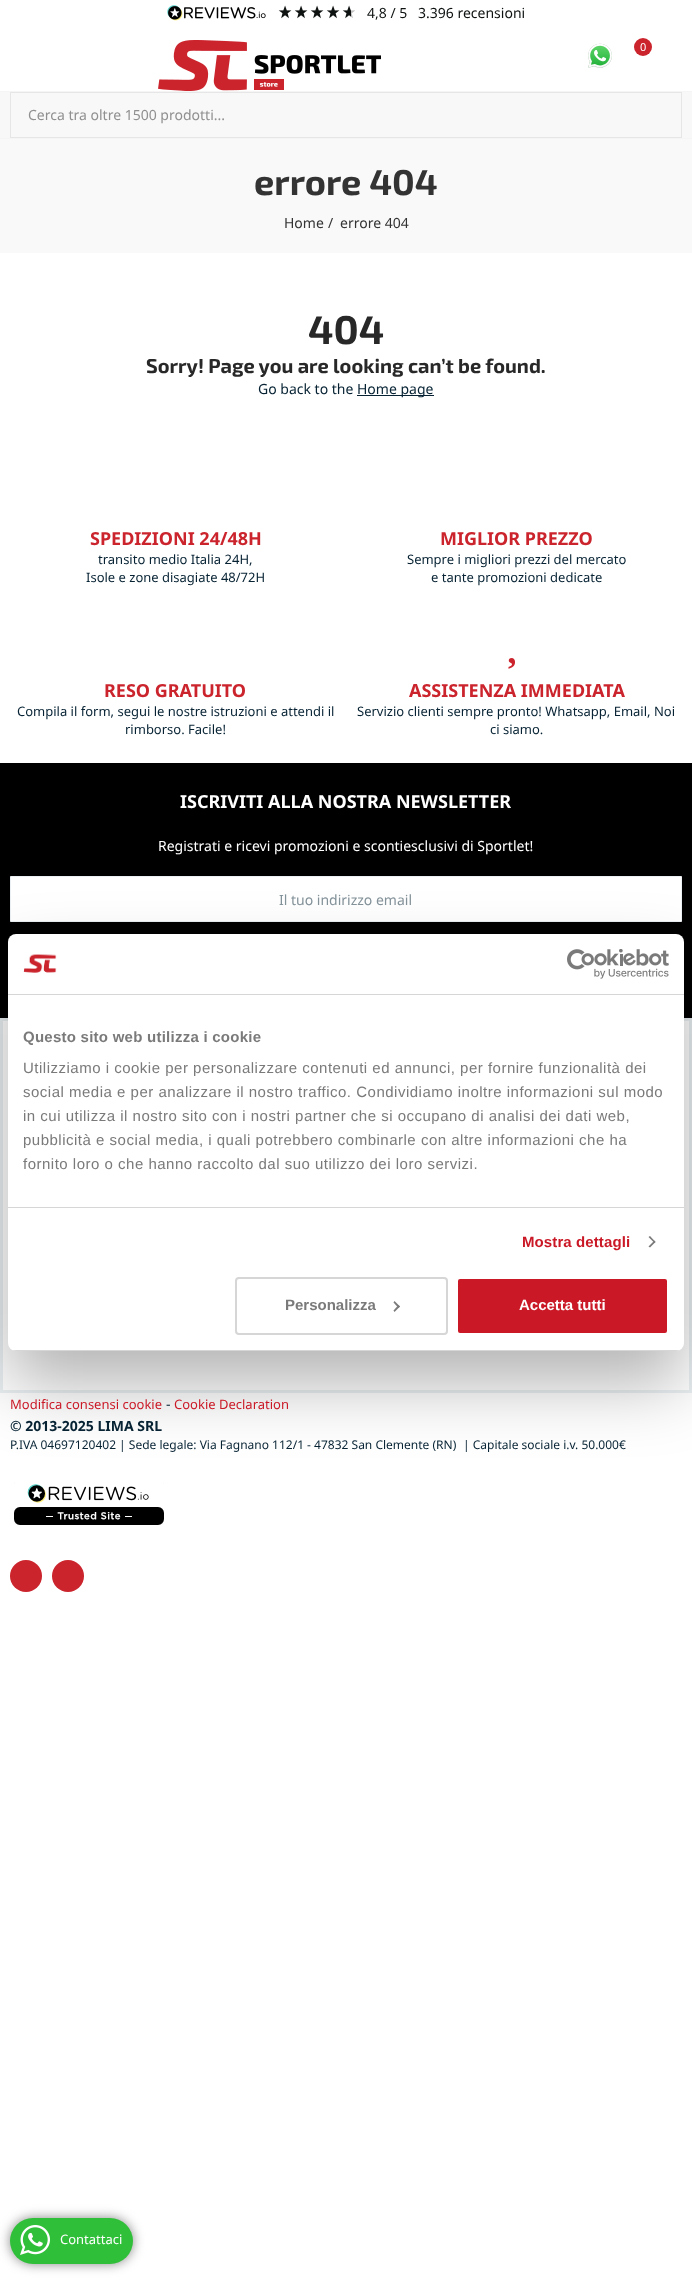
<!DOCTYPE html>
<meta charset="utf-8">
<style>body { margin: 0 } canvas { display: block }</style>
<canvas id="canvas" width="692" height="2284"></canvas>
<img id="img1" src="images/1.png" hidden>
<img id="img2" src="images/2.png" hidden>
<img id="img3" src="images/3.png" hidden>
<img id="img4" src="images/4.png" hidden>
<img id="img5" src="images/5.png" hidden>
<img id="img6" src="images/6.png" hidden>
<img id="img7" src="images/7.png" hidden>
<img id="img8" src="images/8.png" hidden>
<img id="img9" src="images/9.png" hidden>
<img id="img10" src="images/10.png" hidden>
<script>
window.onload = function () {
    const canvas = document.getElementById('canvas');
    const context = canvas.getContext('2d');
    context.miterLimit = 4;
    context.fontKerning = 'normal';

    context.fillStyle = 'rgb(255, 255, 255)';
    context.fillRect(0, 0, 692, 2284);
    context.drawImage(document.getElementById('img1'), 167, 5, 99, 16);
    context.drawImage(document.getElementById('img2'), 278, 5, 14, 14);
    context.drawImage(document.getElementById('img2'), 294, 5, 14, 14);
    context.drawImage(document.getElementById('img2'), 310, 5, 14, 14);
    context.drawImage(document.getElementById('img2'), 326, 5, 14, 14);
    context.drawImage(document.getElementById('img3'), 342, 5, 13, 14);
    context.fillStyle = 'rgb(245, 245, 245)';
    context.fillRect(0, 91, 692, 1);
    context.drawImage(document.getElementById('img4'), 158, 40, 223, 51);
    context.drawImage(document.getElementById('img5'), 588, 43, 24, 25);
    context.fillStyle = 'rgb(203, 36, 45)';
    context.beginPath();
    context.arc(643, 47, 9, 0, 2 * Math.PI);
    context.fill();
    context.fillStyle = 'rgb(248, 248, 248)';
    context.fillRect(0, 92, 692, 46);
    context.fillStyle = 'rgb(245, 245, 245)';
    context.fillRect(0, 138, 692, 1);
    context.strokeStyle = 'rgb(230, 230, 230)';
    context.strokeRect(10.5, 92.5, 671, 45);
    context.fillStyle = 'rgb(249, 249, 249)';
    context.fillRect(0, 139, 692, 114);
    context.fillStyle = 'rgb(6, 34, 51)';
    context.fillRect(357, 395, 77, 1);
    context.drawImage(document.getElementById('img6'), 508, 658, 7, 11);
    context.fillStyle = 'rgb(0, 0, 0)';
    context.fillRect(0, 763, 692, 255);
    context.fillStyle = 'rgb(255, 255, 255)';
    context.beginPath();
    context.rect(10.5, 876.5, 671, 45);
    context.fill();
    context.strokeStyle = 'rgb(234, 240, 243)';
    context.stroke();
    context.lineWidth = 3;
    context.strokeRect(1.5, 1019.5, 689, 372);
    context.drawImage(document.getElementById('img7'), 14, 1482, 150, 43);
    context.fillStyle = 'rgb(203, 36, 45)';
    context.beginPath();
    context.arc(26, 1576, 16, 0, 2 * Math.PI);
    context.fill();
    context.beginPath();
    context.arc(68, 1576, 16, 0, 2 * Math.PI);
    context.fill();
    context.fillStyle = 'rgba(0, 0, 0, 0.3)';
    context.filter = 'blur(34px)';
    context.beginPath();
    context.roundRect(8, 966, 676, 417, 8);
    context.fill();
    context.filter = 'none';
    context.fillStyle = 'rgb(255, 255, 255)';
    context.beginPath();
    context.roundRect(8, 934, 676, 417, 8);
    context.fill();
    context.fillStyle = 'rgb(214, 214, 214)';
    context.fillRect(8, 994, 676, 1);
    context.drawImage(document.getElementById('img8'), 23, 954, 34, 19);
    context.drawImage(document.getElementById('img9'), 567, 949, 102, 30);
    context.fillRect(8, 1207, 676, 1);
    context.fillStyle = 'rgb(122, 122, 122)';
    context.beginPath();
    context.moveTo(650, 1236);
    context.lineTo(655.5, 1242);
    context.lineTo(654.5, 1243);
    context.lineTo(648.5, 1237);
    context.closePath();
    context.fill();
    context.beginPath();
    context.moveTo(654.5, 1240.5);
    context.lineTo(655.5, 1242);
    context.lineTo(650, 1247.5);
    context.lineTo(648.5, 1246.5);
    context.closePath();
    context.fill();
    context.save();
    context.beginPath();
    context.roundRect(8, 934, 676, 417, 8);
    context.clip();
    context.fillStyle = 'rgb(214, 214, 214)';
    context.fillRect(8, 1350, 676, 1);
    context.restore();
    context.beginPath();
    context.roundRect(236, 1278, 211, 56, 3);
    context.strokeStyle = 'rgb(214, 214, 214)';
    context.lineWidth = 2;
    context.stroke();
    context.beginPath();
    context.moveTo(394.5, 1301);
    context.lineTo(400, 1306.5);
    context.lineTo(398.5, 1308);
    context.lineTo(393.5, 1302.5);
    context.closePath();
    context.fill();
    context.beginPath();
    context.moveTo(398.5, 1305);
    context.lineTo(400, 1306.5);
    context.lineTo(394.5, 1312);
    context.lineTo(393.5, 1310.5);
    context.closePath();
    context.fill();
    context.fillStyle = 'rgb(202, 24, 38)';
    context.beginPath();
    context.roundRect(457, 1278, 211, 56, 3);
    context.fill();
    context.strokeStyle = 'rgb(255, 255, 255)';
    context.stroke();
    context.fillStyle = 'rgb(136, 136, 136)';
    context.filter = 'blur(6px)';
    context.beginPath();
    context.roundRect(10, 2218, 123, 46, 23);
    context.fill();
    context.filter = 'none';
    context.fillStyle = 'rgb(48, 191, 57)';
    context.beginPath();
    context.roundRect(10, 2218, 123, 46, 23);
    context.fill();
    context.drawImage(document.getElementById('img10'), 20, 2225, 30, 30);
    context.font = '14px Noto Sans';
    context.fillStyle = 'rgb(14, 19, 17)';
    context.fillText('4,8 / 5', 367, 18);
    context.fillText('3.396 recensioni', 418, 18);
    context.font = '11px Noto Sans';
    context.fillStyle = 'rgb(255, 255, 255)';
    context.fillText('0', 640, 51);
    context.font = '14px Noto Sans';
    context.fillStyle = 'rgb(144, 144, 144)';
    context.fillText('Cerca tra oltre 1500 prodotti...', 28, 120);
    context.font = 'bold 36px "Exo 2"';
    context.fillStyle = 'rgb(51, 51, 51)';
    context.fillText('errore 404', 254, 195);
    context.font = '14px Noto Sans';
    context.fillText('Home', 284, 228);
    context.fillText('/', 328, 228);
    context.fillText('errore 404', 340, 228);
    context.font = 'bold 40px "Exo 2"';
    context.fillStyle = 'rgb(40, 40, 40)';
    context.fillText('404', 308, 344);
    context.font = 'bold 20px "Exo 2"';
    context.fillText('Sorry! Page you are looking can’t be found.', 146, 373);
    context.font = '14px Noto Sans';
    context.fillStyle = 'rgb(6, 34, 51)';
    context.fillText('Go back to the', 258, 394);
    context.fillText('Home page', 357, 394);
    context.font = 'bold 18px Noto Sans';
    context.fillStyle = 'rgb(203, 36, 45)';
    context.fillText('SPEDIZIONI 24/48H', 90, 545);
    context.font = '13px Noto Sans';
    context.fillStyle = 'rgb(6, 34, 51)';
    context.fillText('transito medio Italia 24H,', 98, 564);
    context.fillText('Isole e zone disagiate 48/72H', 86, 582);
    context.font = 'bold 18px Noto Sans';
    context.fillStyle = 'rgb(203, 36, 45)';
    context.fillText('MIGLIOR PREZZO', 440, 545);
    context.font = '13px Noto Sans';
    context.fillStyle = 'rgb(6, 34, 51)';
    context.fillText('Sempre i migliori prezzi del mercato', 407, 564);
    context.fillText('e tante promozioni dedicate', 431, 582);
    context.font = 'bold 18px Noto Sans';
    context.fillStyle = 'rgb(203, 36, 45)';
    context.fillText('RESO GRATUITO', 104, 697);
    context.font = '13px Noto Sans';
    context.fillStyle = 'rgb(6, 34, 51)';
    context.fillText('Compila il form, segui le nostre istruzioni e attendi il', 17, 716);
    context.fillText('rimborso. Facile!', 125, 734);
    context.font = 'bold 18px Noto Sans';
    context.fillStyle = 'rgb(203, 36, 45)';
    context.fillText('ASSISTENZA IMMEDIATA', 409, 697);
    context.font = '13px Noto Sans';
    context.fillStyle = 'rgb(6, 34, 51)';
    context.fillText('Servizio clienti sempre pronto! Whatsapp, Email, Noi', 357, 716);
    context.fillText('ci siamo.', 490, 734);
    context.font = 'bold 18px Noto Sans';
    context.fillStyle = 'rgb(255, 255, 255)';
    context.fillText('ISCRIVITI ALLA NOSTRA NEWSLETTER', 180, 808);
    context.font = '14px Noto Sans';
    context.fillText('Registrati e ricevi promozioni e scontiesclusivi di Sportlet!', 158, 851);
    context.fillStyle = 'rgb(131, 145, 153)';
    context.fillText('Il tuo indirizzo email', 279, 905);
    context.font = '13px Noto Sans';
    context.fillStyle = 'rgb(202, 24, 38)';
    context.fillText('Modifica consensi cookie', 10, 1409);
    context.font = '14px Noto Sans';
    context.fillStyle = 'rgb(6, 34, 51)';
    context.fillText('-', 166, 1409);
    context.font = '13px Noto Sans';
    context.fillStyle = 'rgb(202, 24, 38)';
    context.fillText('Cookie Declaration', 174, 1409);
    context.font = 'bold 14px Noto Sans';
    context.fillStyle = 'rgb(6, 34, 51)';
    context.fillText('© 2013-2025 LIMA SRL', 10, 1431);
    context.font = '12px Noto Sans';
    context.fillText('P.IVA 04697120402 | Sede legale: Via Fagnano 112/1 - 47832 San Clemente (RN)', 10, 1449);
    context.fillText('| Capitale sociale i.v. 50.000€', 463, 1449);
    context.letterSpacing = '0.25px';
    context.font = 'bold 15px Liberation Sans';
    context.fillStyle = 'rgb(122, 122, 122)';
    context.fillText('Questo sito web utilizza i cookie', 23, 1042);
    context.letterSpacing = '0.5px';
    context.font = '15px Liberation Sans';
    context.fillText('Utilizziamo i cookie per personalizzare contenuti ed annunci, per fornire funzionalità dei', 23, 1073);
    context.fillText('social media e per analizzare il nostro traffico. Condividiamo inoltre informazioni sul modo', 23, 1097);
    context.fillText('in cui utilizza il nostro sito con i nostri partner che si occupano di analisi dei dati web,', 23, 1121);
    context.fillText('pubblicità e social media, i quali potrebbero combinarle con altre informazioni che ha', 23, 1145);
    context.fillText('fornito loro o che hanno raccolto dal suo utilizzo dei loro servizi.', 23, 1169);
    context.letterSpacing = '0.1px';
    context.font = 'bold 15px Liberation Sans';
    context.fillStyle = 'rgb(202, 24, 38)';
    context.fillText('Mostra dettagli', 522, 1247);
    context.letterSpacing = '0px';
    context.fillStyle = 'rgb(122, 122, 122)';
    context.fillText('Personalizza', 285, 1310);
    context.fillStyle = 'rgb(255, 255, 255)';
    context.fillText('Accetta tutti', 519, 1310);
    context.font = '13px Noto Sans';
    context.fillText('Contattaci', 60, 2244);
};
</script>
